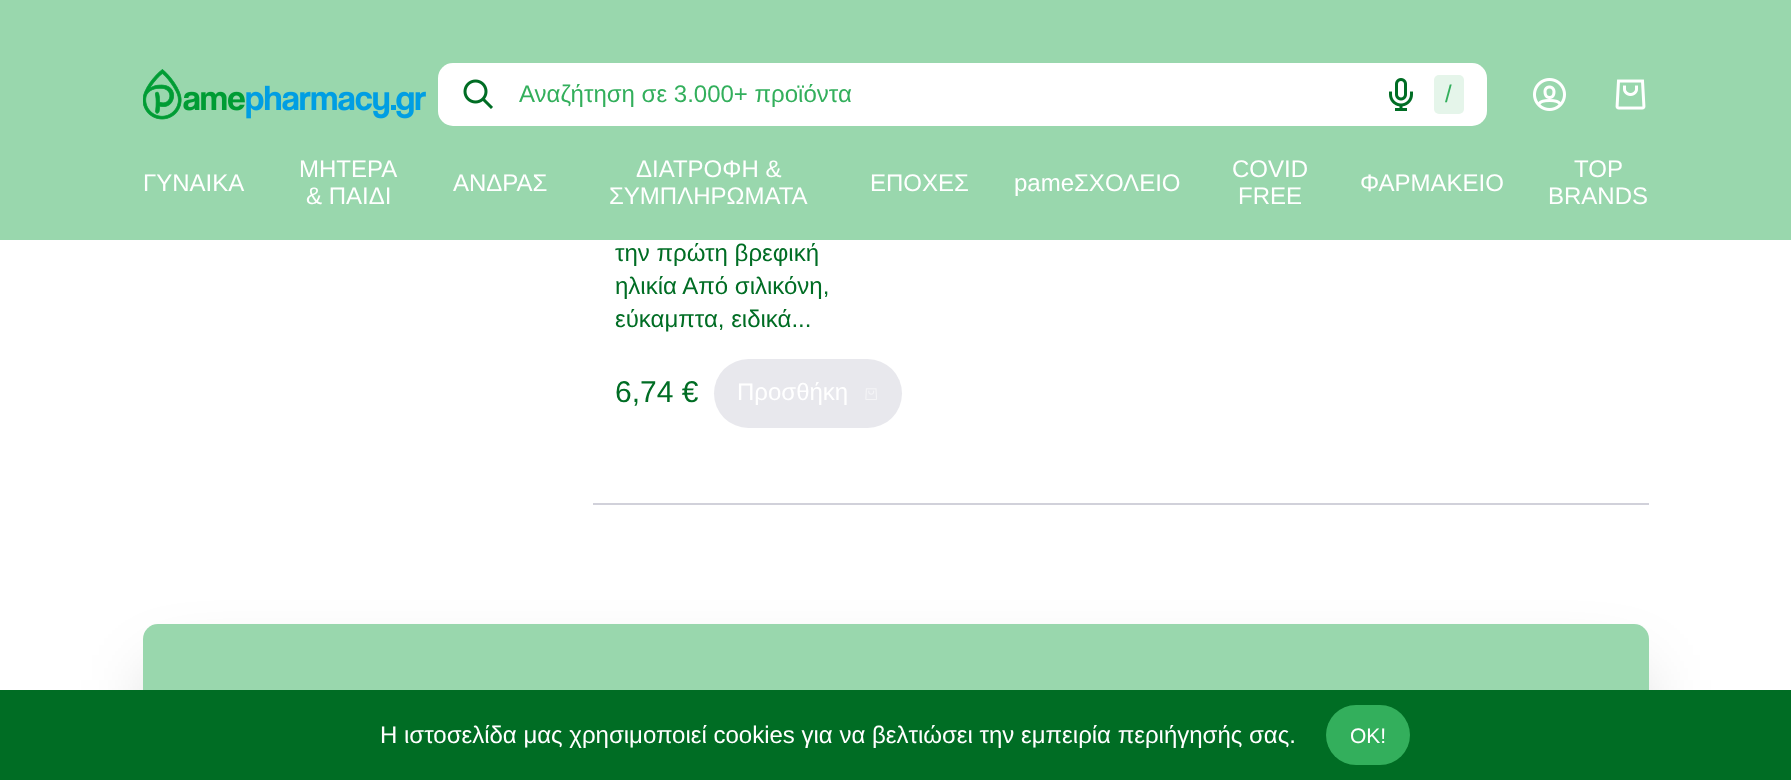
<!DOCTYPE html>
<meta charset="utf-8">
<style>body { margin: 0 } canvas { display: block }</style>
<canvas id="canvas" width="1791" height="780"></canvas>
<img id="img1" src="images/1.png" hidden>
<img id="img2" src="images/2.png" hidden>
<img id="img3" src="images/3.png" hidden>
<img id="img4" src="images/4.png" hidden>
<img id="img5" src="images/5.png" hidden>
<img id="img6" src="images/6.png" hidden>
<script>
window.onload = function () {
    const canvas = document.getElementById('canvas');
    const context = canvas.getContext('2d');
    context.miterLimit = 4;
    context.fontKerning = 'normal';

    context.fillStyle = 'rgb(255, 255, 255)';
    context.fillRect(0, 0, 1791, 780);
    context.fillStyle = 'rgb(153, 215, 173)';
    context.fillRect(0, 0, 1791, 240);
    context.drawImage(document.getElementById('img1'), 143, 69, 283, 51);
    context.fillStyle = 'rgb(255, 255, 255)';
    context.beginPath();
    context.roundRect(438, 63, 1049, 63, 15);
    context.fill();
    context.drawImage(document.getElementById('img2'), 463, 79, 30, 30);
    context.drawImage(document.getElementById('img3'), 1389, 78, 24, 33);
    context.fillStyle = 'rgb(229, 245, 234)';
    context.beginPath();
    context.roundRect(1434, 75, 30, 39, 5);
    context.fill();
    context.drawImage(document.getElementById('img4'), 1533, 78, 33, 33);
    context.drawImage(document.getElementById('img5'), 1615, 79, 31, 31);
    context.fillStyle = 'rgb(232, 232, 237)';
    context.beginPath();
    context.roundRect(714, 359, 188, 69, 34.5);
    context.fill();
    context.drawImage(document.getElementById('img6'), 865, 388, 12, 12);
    context.fillStyle = 'rgb(209, 209, 218)';
    context.fillRect(593, 503, 1056, 2);
    context.fillStyle = 'rgba(0, 0, 0, 0.25)';
    context.filter = 'blur(37.5px)';
    context.beginPath();
    context.rect(161, 680, 1470, 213);
    context.fill();
    context.filter = 'none';
    context.fillStyle = 'rgb(153, 215, 173)';
    context.beginPath();
    context.roundRect(143, 624, 1506, 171, 15);
    context.fill();
    context.fillStyle = 'rgb(0, 109, 36)';
    context.fillRect(0, 690, 1791, 90);
    context.fillStyle = 'rgb(51, 175, 92)';
    context.beginPath();
    context.roundRect(1326, 705, 84, 60, 30);
    context.fill();
    context.font = '24px Liberation Sans';
    context.fillText('Αναζήτηση σε 3.000+ προϊόντα', 519, 102);
    context.fillText('/', 1445, 102);
    context.fillStyle = 'rgb(255, 255, 255)';
    context.fillText('ΓΥΝΑΙΚΑ', 143, 191);
    context.fillText('ΜΗΤΕΡΑ', 299, 177);
    context.fillText('& ΠΑΙΔΙ', 306, 204);
    context.fillText('ΑΝΔΡΑΣ', 453, 191);
    context.fillText('ΔΙΑΤΡΟΦΗ &', 636, 177);
    context.fillText('ΣΥΜΠΛΗΡΩΜΑΤΑ', 609, 204);
    context.fillText('ΕΠΟΧΕΣ', 870, 191);
    context.fillText('pameΣΧΟΛΕΙΟ', 1014, 191);
    context.fillText('COVID', 1232, 177);
    context.fillText('FREE', 1238, 204);
    context.fillText('ΦΑΡΜΑΚΕΙΟ', 1360, 191);
    context.fillText('TOP', 1574, 177);
    context.fillText('BRANDS', 1548, 204);
    context.fillStyle = 'rgb(0, 109, 36)';
    context.fillText('την πρώτη βρεφική', 615, 261);
    context.fillText('ηλικία Από σιλικόνη,', 615, 294);
    context.fillText('εύκαμπτα, ειδικά...', 615, 327);
    context.font = '30px Liberation Sans';
    context.fillText('6,74 €', 615, 402);
    context.font = '24px Liberation Sans';
    context.fillStyle = 'rgb(255, 255, 255)';
    context.fillText('Προσθήκη', 737, 400);
    context.fillText('Η ιστοσελίδα μας χρησιμοποιεί cookies για να βελτιώσει την εμπειρία περιήγησής σας.', 380, 743);
    context.font = '21px Liberation Sans';
    context.fillText('OK!', 1350, 743);
};
</script>
